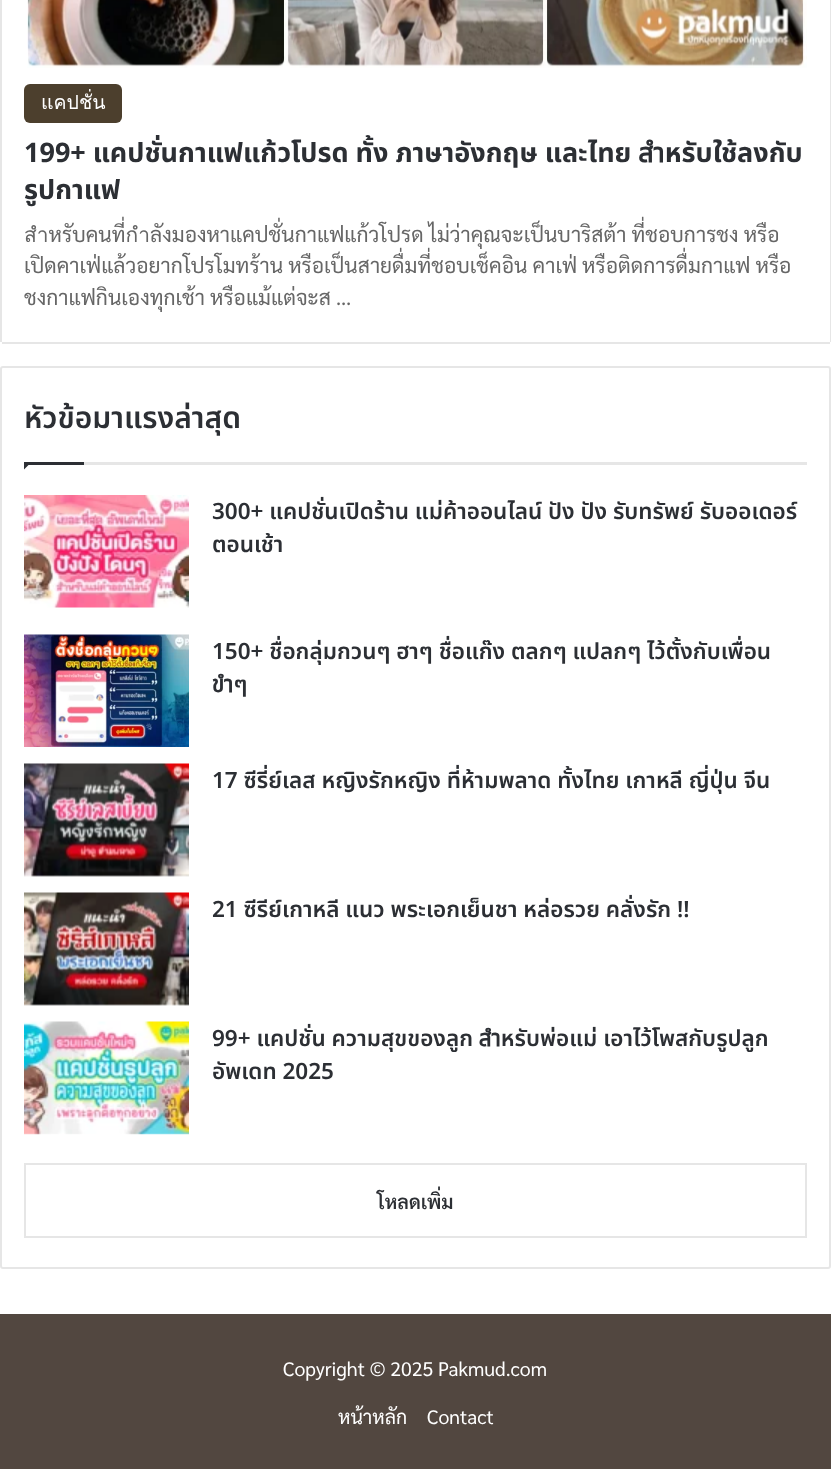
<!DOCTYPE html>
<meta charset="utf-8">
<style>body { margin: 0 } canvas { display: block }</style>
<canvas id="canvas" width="831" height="1469"></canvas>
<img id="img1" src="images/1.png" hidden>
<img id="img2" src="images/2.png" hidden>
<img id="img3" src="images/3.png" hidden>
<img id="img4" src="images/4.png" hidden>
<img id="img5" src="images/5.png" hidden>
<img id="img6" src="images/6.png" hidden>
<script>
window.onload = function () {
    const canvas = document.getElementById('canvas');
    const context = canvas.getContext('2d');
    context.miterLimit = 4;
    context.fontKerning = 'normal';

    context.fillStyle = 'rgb(255, 255, 255)';
    context.fillRect(0, 0, 831, 1469);
    context.fillStyle = 'rgb(230, 230, 230)';
    context.fillRect(830, 0, 1, 342);
    context.fillRect(2, 342, 828, 2);
    context.fillRect(0, 0, 2, 342);
    context.drawImage(document.getElementById('img1'), 27, 0, 780, 68);
    context.fillStyle = 'rgb(76, 63, 45)';
    context.beginPath();
    context.roundRect(24, 84, 98, 39, 6);
    context.fill();
    context.beginPath();
    context.roundRect(1, 367, 829, 901, 2);
    context.strokeStyle = 'rgb(230, 230, 230)';
    context.lineWidth = 2;
    context.stroke();
    context.fillStyle = 'rgb(230, 230, 230)';
    context.fillRect(84, 462, 723, 3);
    context.fillStyle = 'rgb(44, 47, 52)';
    context.beginPath();
    context.moveTo(24, 462);
    context.lineTo(31.5, 462);
    context.lineTo(24, 469.5);
    context.closePath();
    context.fill();
    context.fillRect(24, 462, 60, 3);
    context.drawImage(document.getElementById('img2'), 24, 495, 165, 113);
    context.drawImage(document.getElementById('img3'), 24, 634, 165, 113);
    context.drawImage(document.getElementById('img4'), 24, 763, 165, 114);
    context.drawImage(document.getElementById('img5'), 24, 892, 165, 114);
    context.drawImage(document.getElementById('img6'), 24, 1021, 165, 114);
    context.strokeRect(25, 1164, 781, 73);
    context.fillStyle = 'rgb(82, 71, 64)';
    context.fillRect(0, 1314, 831, 155);
    context.font = '19.5px Loma';
    context.fillStyle = 'rgb(255, 255, 255)';
    context.fillText('แคปชั่น', 41, 109);
    context.font = 'bold 27px Noto Sans Thai';
    context.fillStyle = 'rgb(44, 47, 52)';
    context.fillText('199+ แคปชั่นกาแฟแก้วโปรด ทั้ง ภาษาอังกฤษ และไทย สำหรับใช้ลงกับ', 24, 162);
    context.fillText('รูปกาแฟ', 24, 199);
    context.font = '21px Sarabun';
    context.fillStyle = 'rgb(102, 102, 102)';
    context.fillText('สำหรับคนที่กำลังมองหาแคปชั่นกาแฟแก้วโปรด ไม่ว่าคุณจะเป็นบาริสต้า ที่ชอบการชง หรือ', 24, 242);
    context.fillText('เปิดคาเฟ่แล้วอยากโปรโมทร้าน หรือเป็นสายดื่มที่ชอบเช็คอิน คาเฟ่ หรือติดการดื่มกาแฟ หรือ', 24, 273);
    context.fillText('ชงกาแฟกินเองทุกเช้า หรือแม้แต่จะส …', 24, 305);
    context.font = '600 30px Noto Sans Thai';
    context.fillStyle = 'rgb(44, 47, 52)';
    context.fillText('หัวข้อมาแรงล่าสุด', 24, 428);
    context.font = '600 22.5px Noto Sans Thai';
    context.fillText('300+ แคปชั่นเปิดร้าน แม่ค้าออนไลน์ ปัง ปัง รับทรัพย์ รับออเดอร์', 212, 519);
    context.fillText('ตอนเช้า', 212, 552);
    context.fillText('150+ ชื่อกลุ่มกวนๆ ฮาๆ ชื่อแก๊ง ตลกๆ แปลกๆ ไว้ตั้งกับเพื่อน', 212, 659);
    context.fillText('ขำๆ', 212, 692);
    context.fillText('17 ซีรี่ย์เลส หญิงรักหญิง ที่ห้ามพลาด ทั้งไทย เกาหลี ญี่ปุ่น จีน', 212, 788);
    context.fillText('21 ซีรีย์เกาหลี แนว พระเอกเย็นชา หล่อรวย คลั่งรัก !!', 212, 917);
    context.fillText('99+ แคปชั่น ความสุขของลูก สำหรับพ่อแม่ เอาไว้โพสกับรูปลูก', 212, 1046);
    context.fillText('อัพเดท 2025', 212, 1079);
    context.font = '600 19.5px Sarabun';
    context.fillText('โหลดเพิ่ม', 377, 1209);
    context.font = '19.5px Sarabun';
    context.fillStyle = 'rgb(255, 255, 255)';
    context.fillText('Copyright © 2025 Pakmud.com', 283, 1376);
    context.fillText('หน้าหลัก', 338, 1424);
    context.fillText('Contact', 427, 1424);
};
</script>
